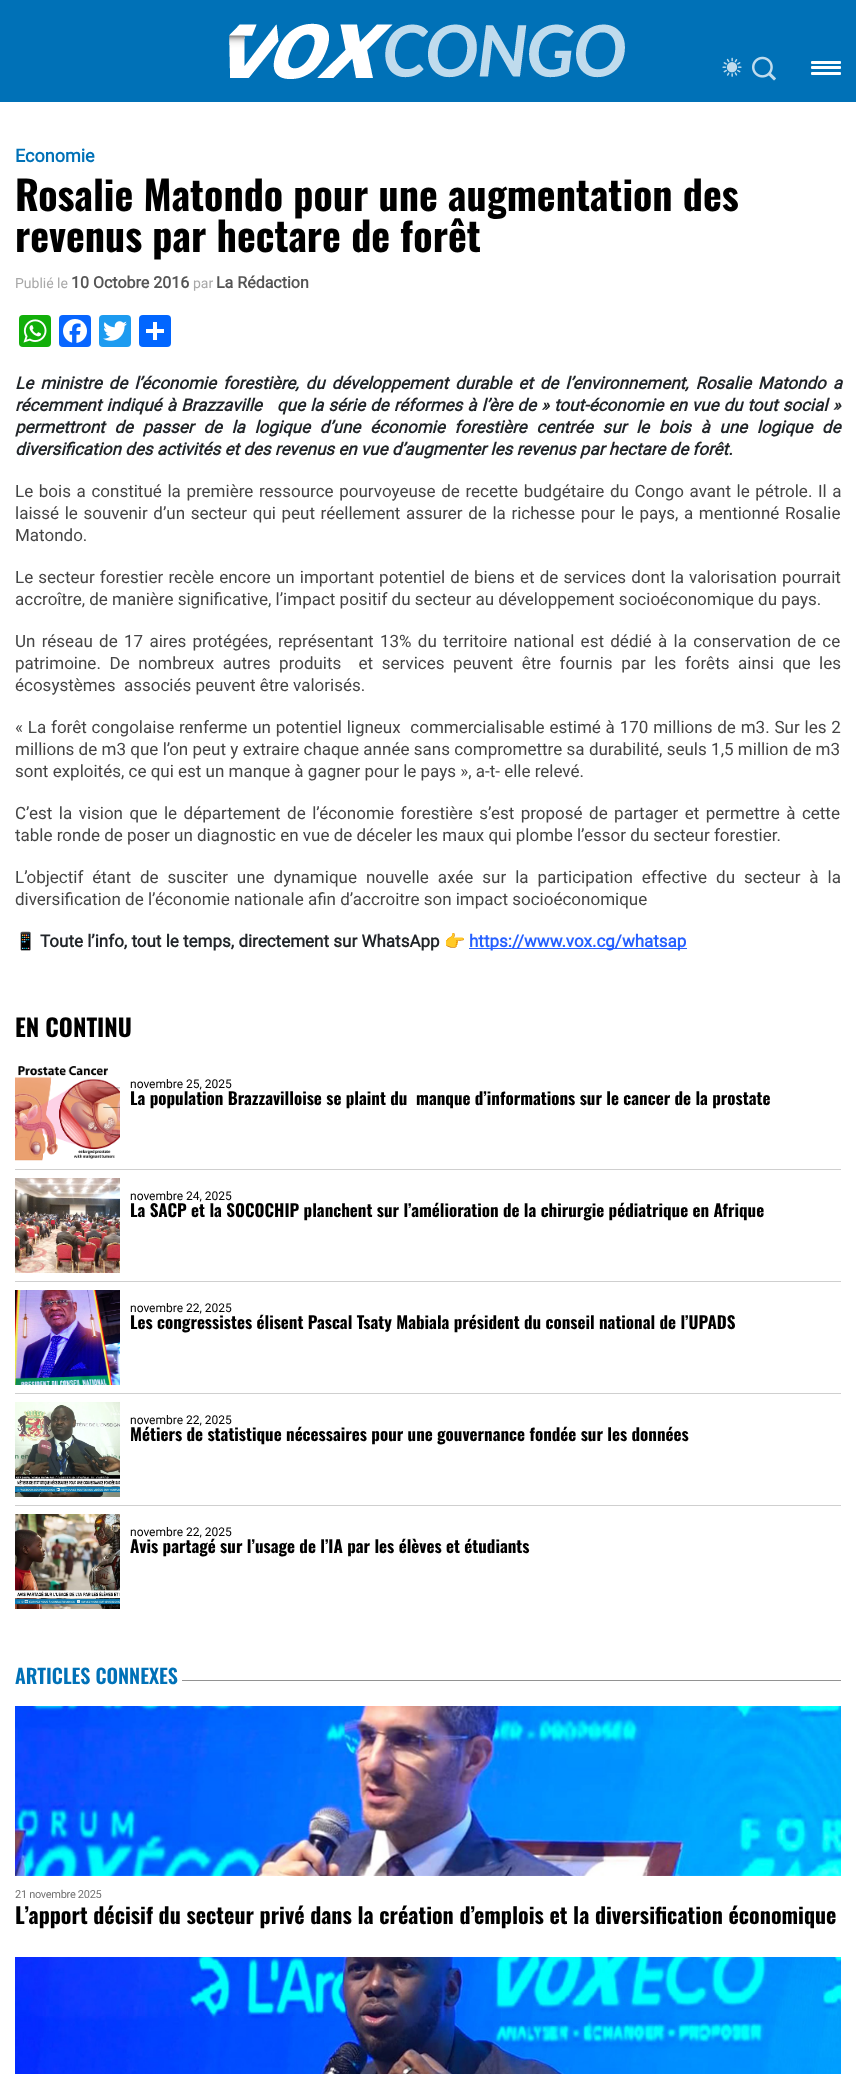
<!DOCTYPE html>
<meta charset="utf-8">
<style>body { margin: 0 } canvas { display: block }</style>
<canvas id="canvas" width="856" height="2074"></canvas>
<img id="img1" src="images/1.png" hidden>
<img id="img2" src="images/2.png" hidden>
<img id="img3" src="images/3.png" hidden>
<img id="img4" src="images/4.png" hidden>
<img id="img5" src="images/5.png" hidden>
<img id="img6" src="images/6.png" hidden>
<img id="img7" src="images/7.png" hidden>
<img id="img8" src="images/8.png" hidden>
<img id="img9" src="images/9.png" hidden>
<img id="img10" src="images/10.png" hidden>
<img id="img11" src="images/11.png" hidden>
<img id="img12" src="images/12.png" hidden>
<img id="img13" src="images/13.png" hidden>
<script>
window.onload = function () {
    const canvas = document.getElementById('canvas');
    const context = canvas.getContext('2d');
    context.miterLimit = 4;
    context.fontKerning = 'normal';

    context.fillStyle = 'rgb(255, 255, 255)';
    context.fillRect(0, 0, 856, 2074);
    context.fillStyle = 'rgb(0, 113, 183)';
    context.fillRect(0, 0, 856, 102);
    context.drawImage(document.getElementById('img1'), 229, 23, 396, 56);
    context.drawImage(document.getElementById('img2'), 722, 57, 20, 20);
    context.drawImage(document.getElementById('img3'), 752, 56, 24, 25);
    context.fillStyle = 'rgb(255, 255, 255)';
    context.beginPath();
    context.roundRect(811, 61, 30, 3, 1);
    context.fill();
    context.beginPath();
    context.roundRect(811, 66, 30, 3, 1);
    context.fill();
    context.beginPath();
    context.roundRect(811, 72, 30, 3, 1);
    context.fill();
    context.fillStyle = 'rgb(18, 175, 10)';
    context.beginPath();
    context.roundRect(19, 315, 32, 32, 4);
    context.fill();
    context.drawImage(document.getElementById('img4'), 23, 319, 24, 24);
    context.fillStyle = 'rgb(8, 102, 255)';
    context.beginPath();
    context.roundRect(59, 315, 32, 32, 4);
    context.fill();
    context.drawImage(document.getElementById('img5'), 63, 319, 24, 24);
    context.fillStyle = 'rgb(29, 155, 240)';
    context.beginPath();
    context.roundRect(99, 315, 32, 32, 4);
    context.fill();
    context.drawImage(document.getElementById('img6'), 103, 321, 24, 20);
    context.fillStyle = 'rgb(1, 102, 255)';
    context.beginPath();
    context.roundRect(139, 315, 32, 32, 4);
    context.fill();
    context.fillStyle = 'rgb(255, 255, 255)';
    context.fillRect(153, 322, 4, 18);
    context.fillRect(146, 329, 18, 4);
    context.fillStyle = 'rgb(38, 96, 255)';
    context.fillRect(469, 948, 218, 1);
    context.fillStyle = 'rgb(207, 207, 207)';
    context.fillRect(15, 1169, 826, 1);
    context.drawImage(document.getElementById('img7'), 15, 1066, 105, 95);
    context.fillRect(15, 1281, 826, 1);
    context.drawImage(document.getElementById('img8'), 15, 1178, 105, 95);
    context.fillRect(15, 1393, 826, 1);
    context.drawImage(document.getElementById('img9'), 15, 1290, 105, 95);
    context.fillRect(15, 1505, 826, 1);
    context.drawImage(document.getElementById('img10'), 15, 1402, 105, 95);
    context.drawImage(document.getElementById('img11'), 15, 1514, 105, 95);
    context.fillStyle = 'rgb(146, 146, 146)';
    context.fillRect(182, 1680, 659, 1);
    context.drawImage(document.getElementById('img12'), 15, 1706, 826, 170);
    context.drawImage(document.getElementById('img13'), 15, 1957, 826, 117);
    context.font = 'bold 18px Roboto';
    context.fillStyle = 'rgb(0, 113, 183)';
    context.fillText('Economie', 15, 162);
    context.font = 'bold 40px Oswald';
    context.fillStyle = 'rgb(0, 0, 0)';
    context.fillText('Rosalie Matondo pour une augmentation des', 15, 211);
    context.fillText('revenus par hectare de forêt', 15, 252);
    context.font = '14px Roboto';
    context.fillStyle = 'rgb(168, 168, 168)';
    context.fillText('Publié le', 15, 288);
    context.font = 'bold 16px Roboto';
    context.fillStyle = 'rgb(85, 85, 85)';
    context.fillText('10 Octobre 2016', 71, 288);
    context.font = '14px Roboto';
    context.fillStyle = 'rgb(168, 168, 168)';
    context.fillText('par', 193, 288);
    context.font = 'bold 16px Roboto';
    context.fillStyle = 'rgb(85, 85, 85)';
    context.fillText('La Rédaction', 216, 288);
    context.wordSpacing = '2.75px';
    context.font = 'italic bold 17px Roboto';
    context.fillStyle = 'rgb(33, 37, 41)';
    context.fillText('Le ministre de l’économie forestière, du développement durable et de l’environnement, Rosalie Matondo a', 15, 389);
    context.wordSpacing = '0.8px';
    context.fillText('récemment indiqué à Brazzaville   que la série de réformes à l’ère de » tout-économie en vue du tout social »', 15, 411);
    context.wordSpacing = '5.4px';
    context.fillText('permettront de passer de la logique d’une économie forestière centrée sur le bois à une logique de', 15, 433);
    context.wordSpacing = '0px';
    context.fillText('diversification des activités et des revenus en vue d’augmenter les revenus par hectare de forêt.', 15, 455);
    context.wordSpacing = '1.4px';
    context.font = '17px Roboto';
    context.fillStyle = 'rgb(69, 69, 69)';
    context.fillText('Le bois a constitué la première ressource pourvoyeuse de recette budgétaire du Congo avant le pétrole. Il a', 15, 497);
    context.fillText('laissé le souvenir d’un secteur qui peut réellement assurer de la richesse pour le pays, a mentionné Rosalie', 15, 519);
    context.wordSpacing = '0px';
    context.fillText('Matondo.', 15, 541);
    context.wordSpacing = '0.9px';
    context.fillText('Le secteur forestier recèle encore un important potentiel de biens et de services dont la valorisation pourrait', 15, 583);
    context.wordSpacing = '0px';
    context.fillText('accroître, de manière significative, l’impact positif du secteur au développement socioéconomique du pays.', 15, 605);
    context.wordSpacing = '2.1px';
    context.fillText('Un réseau de 17 aires protégées, représentant 13% du territoire national est dédié à la conservation de ce', 15, 647);
    context.wordSpacing = '4.4px';
    context.fillText('patrimoine. De nombreux autres produits  et services peuvent être fournis par les forêts ainsi que les', 15, 669);
    context.wordSpacing = '0px';
    context.fillText('écosystèmes  associés peuvent être valorisés.', 15, 691);
    context.wordSpacing = '0.6px';
    context.fillText('« La forêt congolaise renferme un potentiel ligneux  commercialisable estimé à 170 millions de m3. Sur les 2', 15, 733);
    context.wordSpacing = '0.1px';
    context.fillText('millions de m3 que l’on peut y extraire chaque année sans compromettre sa durabilité, seuls 1,5 million de m3', 15, 755);
    context.wordSpacing = '0px';
    context.fillText('sont exploités, ce qui est un manque à gagner pour le pays », a-t- elle relevé.', 15, 777);
    context.wordSpacing = '2.25px';
    context.fillText('C’est la vision que le département de l’économie forestière s’est proposé de partager et permettre à cette', 15, 819);
    context.wordSpacing = '0px';
    context.fillText('table ronde de poser un diagnostic en vue de déceler les maux qui plombe l’essor du secteur forestier.', 15, 841);
    context.wordSpacing = '4.75px';
    context.fillText('L’objectif étant de susciter une dynamique nouvelle axée sur la participation effective du secteur à la', 15, 883);
    context.wordSpacing = '0px';
    context.fillText('diversification de l’économie nationale afin d’accroitre son impact socioéconomique', 15, 905);
    context.font = 'bold 17px Noto Color Emoji';
    context.fillStyle = 'rgb(33, 37, 41)';
    context.fillText('📱', 15, 947);
    context.font = 'bold 17px Roboto';
    context.fillText('Toute l’info, tout le temps, directement sur WhatsApp', 40, 947);
    context.font = 'bold 17px Noto Color Emoji';
    context.fillText('👉', 444, 947);
    context.font = 'bold 17px Roboto';
    context.fillStyle = 'rgb(38, 96, 255)';
    context.fillText('https://www.vox.cg/whatsap', 469, 947);
    context.font = 'bold 24px Oswald';
    context.fillStyle = 'rgb(0, 0, 0)';
    context.fillText('EN CONTINU', 15, 1037);
    context.font = '12px Roboto';
    context.fillText('novembre 25, 2025', 130, 1088);
    context.font = 'bold 17px Oswald';
    context.fillText('La population Brazzavilloise se plaint du  manque d’informations sur le cancer de la prostate', 130, 1105);
    context.font = '12px Roboto';
    context.fillText('novembre 24, 2025', 130, 1200);
    context.font = 'bold 17px Oswald';
    context.fillText('La SACP et la SOCOCHIP planchent sur l’amélioration de la chirurgie pédiatrique en Afrique', 130, 1217);
    context.font = '12px Roboto';
    context.fillText('novembre 22, 2025', 130, 1312);
    context.font = 'bold 17px Oswald';
    context.fillText('Les congressistes élisent Pascal Tsaty Mabiala président du conseil national de l’UPADS', 130, 1329);
    context.font = '12px Roboto';
    context.fillText('novembre 22, 2025', 130, 1424);
    context.font = 'bold 17px Oswald';
    context.fillText('Métiers de statistique nécessaires pour une gouvernance fondée sur les données', 130, 1441);
    context.font = '12px Roboto';
    context.fillText('novembre 22, 2025', 130, 1536);
    context.font = 'bold 17px Oswald';
    context.fillText('Avis partagé sur l’usage de l’IA par les élèves et étudiants', 130, 1553);
    context.font = '600 20px Oswald';
    context.fillStyle = 'rgb(0, 113, 183)';
    context.fillText('ARTICLES CONNEXES', 15, 1684);
    context.letterSpacing = '-0.3px';
    context.font = '11px Roboto';
    context.fillStyle = 'rgb(114, 114, 114)';
    context.fillText('21 novembre 2025', 15, 1898);
    context.letterSpacing = '0px';
    context.font = 'bold 22px Oswald';
    context.fillStyle = 'rgb(0, 0, 0)';
    context.fillText('L’apport décisif du secteur privé dans la création d’emplois et la diversification économique', 15, 1924);
};
</script>
